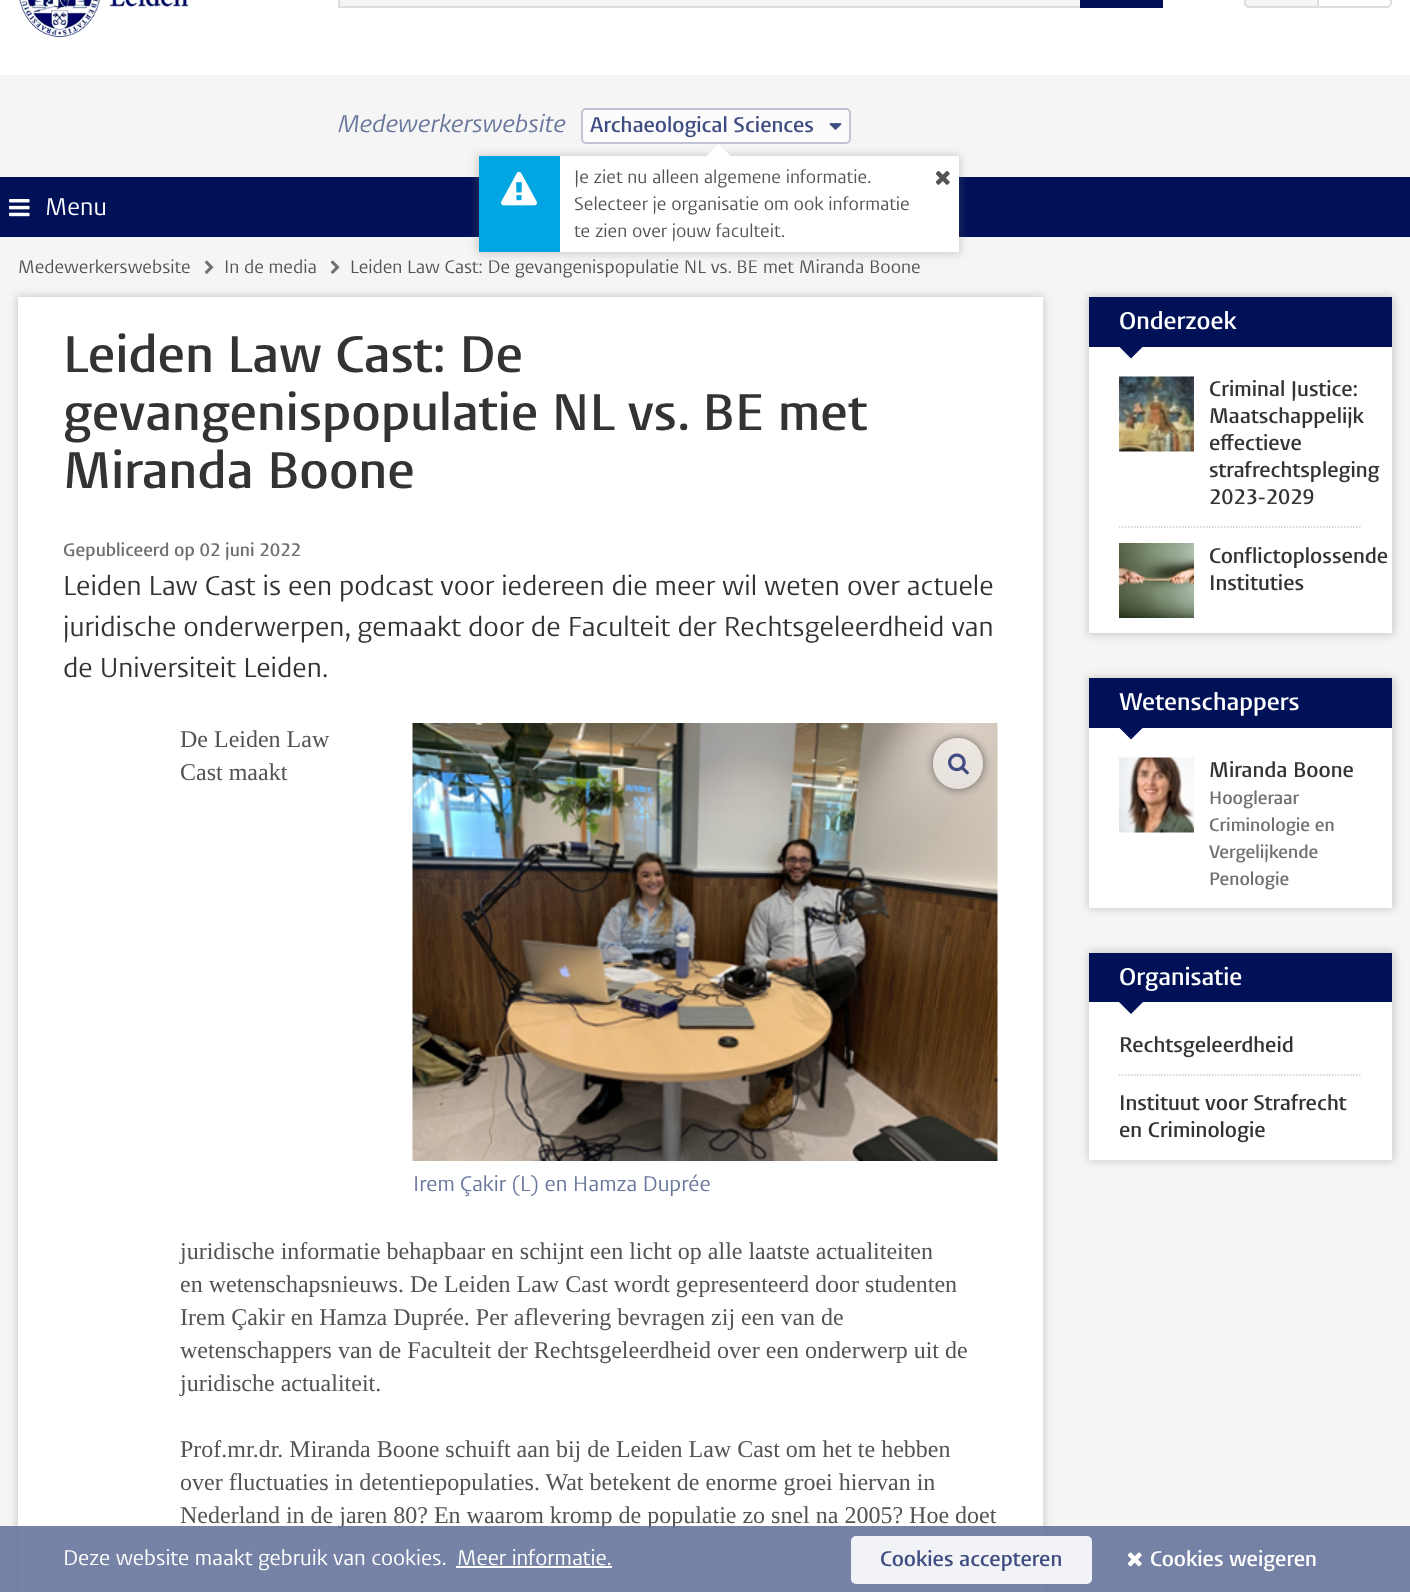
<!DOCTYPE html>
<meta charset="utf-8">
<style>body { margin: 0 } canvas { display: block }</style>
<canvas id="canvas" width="1410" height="1592"></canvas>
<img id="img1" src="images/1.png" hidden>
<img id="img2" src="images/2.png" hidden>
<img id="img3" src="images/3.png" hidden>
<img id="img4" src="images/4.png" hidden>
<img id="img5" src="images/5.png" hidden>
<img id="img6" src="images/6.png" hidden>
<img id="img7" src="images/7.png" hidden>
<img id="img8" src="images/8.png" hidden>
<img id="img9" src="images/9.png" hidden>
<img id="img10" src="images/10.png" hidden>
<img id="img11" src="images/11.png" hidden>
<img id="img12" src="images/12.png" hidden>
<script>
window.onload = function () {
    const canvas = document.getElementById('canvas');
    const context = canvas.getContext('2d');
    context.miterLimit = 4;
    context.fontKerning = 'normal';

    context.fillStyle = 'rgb(245, 245, 245)';
    context.fillRect(0, 0, 1410, 1592);
    context.fillStyle = 'rgb(255, 255, 255)';
    context.fillRect(0, 0, 1410, 75);
    context.drawImage(document.getElementById('img1'), 19, 0, 170, 37);
    context.fillStyle = 'rgb(245, 245, 245)';
    context.fillRect(339, 0, 741, 6);
    context.fillStyle = 'rgb(221, 221, 221)';
    context.fillRect(338, 6, 742, 2);
    context.fillRect(338, 0, 2, 8);
    context.fillStyle = 'rgb(0, 17, 88)';
    context.fillRect(1080, 0, 83, 8);
    context.fillStyle = 'rgb(245, 245, 245)';
    context.beginPath();
    context.moveTo(1249, -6);
    context.lineTo(1318, -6);
    context.lineTo(1318, 7);
    context.lineTo(1249, 7);
    context.bezierCurveTo(1247, 7, 1245, 5, 1245, 3);
    context.lineTo(1245, -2);
    context.bezierCurveTo(1245, -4, 1247, -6, 1249, -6);
    context.closePath();
    context.fill();
    context.strokeStyle = 'rgb(221, 221, 221)';
    context.lineWidth = 2;
    context.stroke();
    context.fillStyle = 'rgb(255, 255, 255)';
    context.beginPath();
    context.moveTo(1318, -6);
    context.lineTo(1387, -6);
    context.bezierCurveTo(1389, -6, 1391, -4, 1391, -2);
    context.lineTo(1391, 3);
    context.bezierCurveTo(1391, 5, 1389, 7, 1387, 7);
    context.lineTo(1318, 7);
    context.closePath();
    context.fill();
    context.stroke();
    context.fillStyle = 'rgb(0, 17, 88)';
    context.fillRect(0, 177, 1410, 60);
    context.drawImage(document.getElementById('img2'), 9, 199, 21, 18);
    context.fillStyle = 'rgb(252, 252, 252)';
    context.beginPath();
    context.roundRect(582, 109, 268, 34, 4);
    context.fill();
    context.strokeStyle = 'rgb(191, 195, 213)';
    context.stroke();
    context.drawImage(document.getElementById('img3'), 829, 123, 13, 7);
    context.fillStyle = 'rgba(120, 110, 100, 0.3)';
    context.filter = 'blur(4px)';
    context.beginPath();
    context.rect(477, 155, 483, 99);
    context.fill();
    context.filter = 'none';
    context.fillStyle = 'rgb(255, 255, 255)';
    context.fillRect(560, 156, 399, 96);
    context.beginPath();
    context.moveTo(730.5, 156);
    context.lineTo(706.5, 156);
    context.lineTo(718.5, 144);
    context.closePath();
    context.fill();
    context.fillStyle = 'rgb(0, 166, 226)';
    context.fillRect(479, 156, 81, 96);
    context.drawImage(document.getElementById('img4'), 501, 171, 36, 35);
    context.drawImage(document.getElementById('img5'), 935, 170, 15, 15);
    context.drawImage(document.getElementById('img6'), 204, 260, 10, 14);
    context.drawImage(document.getElementById('img6'), 330, 260, 10, 14);
    context.fillStyle = 'rgba(120, 110, 100, 0.3)';
    context.filter = 'blur(4px)';
    context.beginPath();
    context.rect(17, 296, 1027, 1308);
    context.fill();
    context.filter = 'none';
    context.fillStyle = 'rgb(255, 255, 255)';
    context.fillRect(18, 297, 1025, 1295);
    context.drawImage(document.getElementById('img7'), 412, 723, 586, 438);
    context.save();
    context.beginPath();
    context.moveTo(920, 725);
    context.lineTo(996, 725);
    context.lineTo(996, 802);
    context.lineTo(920, 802);
    context.closePath();
    context.moveTo(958, 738);
    context.bezierCurveTo(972, 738, 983, 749, 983, 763);
    context.lineTo(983, 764);
    context.bezierCurveTo(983, 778, 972, 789, 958, 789);
    context.bezierCurveTo(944, 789, 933, 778, 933, 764);
    context.lineTo(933, 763);
    context.bezierCurveTo(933, 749, 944, 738, 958, 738);
    context.closePath();
    context.clip('evenodd');
    context.fillStyle = 'rgba(0, 0, 0, 0.5)';
    context.filter = 'blur(4px)';
    context.beginPath();
    context.roundRect(933, 738, 50, 51, 25);
    context.fill();
    context.filter = 'none';
    context.restore();
    context.fillStyle = 'rgba(255, 255, 255, 0.5)';
    context.beginPath();
    context.roundRect(933, 738, 50, 51, 25);
    context.fill();
    context.drawImage(document.getElementById('img8'), 948, 753, 21, 22);
    context.fillStyle = 'rgba(120, 110, 100, 0.3)';
    context.filter = 'blur(4px)';
    context.beginPath();
    context.rect(1088, 296, 306, 339);
    context.fill();
    context.filter = 'none';
    context.fillStyle = 'rgb(255, 255, 255)';
    context.fillRect(1089, 347, 303, 286);
    context.fillStyle = 'rgb(0, 17, 88)';
    context.fillRect(1089, 297, 303, 50);
    context.beginPath();
    context.moveTo(1119, 346.5);
    context.lineTo(1143, 346.5);
    context.lineTo(1131, 358.5);
    context.closePath();
    context.fill();
    context.drawImage(document.getElementById('img9'), 1119, 376, 75, 76);
    context.beginPath();
    context.moveTo(1119, 527);
    context.lineTo(1362, 527);
    context.strokeStyle = 'rgb(204, 204, 204)';
    context.lineWidth = 1.5;
    context.setLineDash([1.5, 1.5]);
    context.stroke();
    context.drawImage(document.getElementById('img10'), 1119, 543, 75, 75);
    context.fillStyle = 'rgba(120, 110, 100, 0.3)';
    context.filter = 'blur(4px)';
    context.beginPath();
    context.rect(1088, 677, 306, 232);
    context.fill();
    context.filter = 'none';
    context.fillStyle = 'rgb(255, 255, 255)';
    context.fillRect(1089, 728, 303, 180);
    context.fillStyle = 'rgb(0, 17, 88)';
    context.fillRect(1089, 678, 303, 50);
    context.beginPath();
    context.moveTo(1119, 727.5);
    context.lineTo(1143, 727.5);
    context.lineTo(1131, 739.5);
    context.closePath();
    context.fill();
    context.drawImage(document.getElementById('img11'), 1119, 757, 75, 76);
    context.fillStyle = 'rgba(120, 110, 100, 0.3)';
    context.filter = 'blur(4px)';
    context.beginPath();
    context.rect(1088, 951, 306, 210);
    context.fill();
    context.filter = 'none';
    context.fillStyle = 'rgb(255, 255, 255)';
    context.fillRect(1089, 1002, 303, 158);
    context.fillStyle = 'rgb(0, 17, 88)';
    context.fillRect(1089, 953, 303, 49);
    context.beginPath();
    context.moveTo(1119, 1002);
    context.lineTo(1143, 1002);
    context.lineTo(1131, 1014);
    context.closePath();
    context.fill();
    context.beginPath();
    context.moveTo(1119, 1075);
    context.lineTo(1362, 1075);
    context.stroke();
    context.font = '24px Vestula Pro';
    context.fillStyle = 'rgb(255, 255, 255)';
    context.fillText('Menu', 45, 215);
    context.font = 'italic 24px Vestula Pro';
    context.fillStyle = 'rgb(104, 118, 156)';
    context.fillText('Medewerkerswebsite', 338, 132);
    context.font = '600 21px Vestula Pro';
    context.fillStyle = 'rgb(64, 77, 130)';
    context.fillText('Archaeological Sciences', 590, 132);
    context.font = '18px Vestula Pro';
    context.fillStyle = 'rgb(83, 83, 83)';
    context.fillText('Je ziet nu alleen algemene informatie.', 574, 183);
    context.fillText('Selecteer je organisatie om ook informatie', 574, 210);
    context.fillText('te zien over jouw faculteit.', 574, 237);
    context.fillText('Medewerkerswebsite', 18, 273);
    context.fillText('In de media', 224, 273);
    context.fillText('Leiden Law Cast: De gevangenispopulatie NL vs. BE met Miranda Boone', 350, 273);
    context.font = '600 51px Vestula Pro';
    context.fillStyle = 'rgb(51, 51, 51)';
    context.fillText('Leiden Law Cast: De', 63, 372);
    context.fillText('gevangenispopulatie NL vs. BE met', 63, 430);
    context.fillText('Miranda Boone', 63, 488);
    context.font = '600 18px Vestula Pro';
    context.fillStyle = 'rgb(112, 112, 112)';
    context.fillText('Gepubliceerd op 02 juni 2022', 63, 556);
    context.font = '27px Vestula Pro';
    context.fillStyle = 'rgb(51, 51, 51)';
    context.fillText('Leiden Law Cast is een podcast voor iedereen die meer wil weten over actuele', 63, 595);
    context.fillText('juridische onderwerpen, gemaakt door de Faculteit der Rechtsgeleerdheid van', 63, 636);
    context.fillText('de Universiteit Leiden.', 63, 677);
    context.font = '24px Liberation Serif';
    context.fillStyle = 'rgb(83, 83, 83)';
    context.fillText('De Leiden Law', 180, 747);
    context.fillText('Cast maakt', 180, 780);
    context.fillText('juridische informatie behapbaar en schijnt een licht op alle laatste actualiteiten', 180, 1259);
    context.fillText('en wetenschapsnieuws. De Leiden Law Cast wordt gepresenteerd door studenten', 180, 1292);
    context.fillText('Irem Çakir en Hamza Duprée. Per aflevering bevragen zij een van de', 180, 1325);
    context.fillText('wetenschappers van de Faculteit der Rechtsgeleerdheid over een onderwerp uit de', 180, 1358);
    context.fillText('juridische actualiteit.', 180, 1391);
    context.font = '21px Vestula Pro';
    context.fillStyle = 'rgb(104, 118, 156)';
    context.fillText('Irem Çakir (L) en Hamza Duprée', 413, 1191);
    context.font = '24px Liberation Serif';
    context.fillStyle = 'rgb(83, 83, 83)';
    context.fillText('Prof.mr.dr. Miranda Boone schuift aan bij de Leiden Law Cast om het te hebben', 180, 1457);
    context.fillText('over fluctuaties in detentiepopulaties. Wat betekent de enorme groei hiervan in', 180, 1490);
    context.fillText('Nederland in de jaren 80? En waarom kromp de populatie zo snel na 2005? Hoe doet', 180, 1523);
    context.font = '600 24px Vestula Pro';
    context.fillStyle = 'rgb(255, 255, 255)';
    context.fillText('Onderzoek', 1119, 329);
    context.font = '600 21px Vestula Pro';
    context.fillStyle = 'rgb(51, 51, 51)';
    context.fillText('Criminal Justice:', 1209, 396);
    context.fillText('Maatschappelijk', 1209, 423);
    context.fillText('effectieve', 1209, 450);
    context.fillText('strafrechtspleging', 1209, 477);
    context.fillText('2023-2029', 1209, 504);
    context.fillText('Conflictoplossende', 1209, 563);
    context.fillText('Instituties', 1209, 590);
    context.font = '600 24px Vestula Pro';
    context.fillStyle = 'rgb(255, 255, 255)';
    context.fillText('Wetenschappers', 1119, 710);
    context.font = '600 21px Vestula Pro';
    context.fillStyle = 'rgb(51, 51, 51)';
    context.fillText('Miranda Boone', 1209, 777);
    context.font = '600 18px Vestula Pro';
    context.fillStyle = 'rgb(112, 112, 112)';
    context.fillText('Hoogleraar', 1209, 804);
    context.fillText('Criminologie en', 1209, 831);
    context.fillText('Vergelijkende', 1209, 858);
    context.fillText('Penologie', 1209, 885);
    context.font = '600 24px Vestula Pro';
    context.fillStyle = 'rgb(255, 255, 255)';
    context.fillText('Organisatie', 1119, 985);
    context.font = '600 21px Vestula Pro';
    context.fillStyle = 'rgb(51, 51, 51)';
    context.fillText('Rechtsgeleerdheid', 1119, 1052);
    context.fillText('Instituut voor Strafrecht', 1119, 1110);
    context.fillText('en Criminologie', 1119, 1137);
    context.fillStyle = 'rgba(104, 118, 156, 0.9)';
    context.fillRect(0, 1526, 1410, 66);
    context.font = '21px Vestula Pro';
    context.fillStyle = 'rgb(255, 255, 255)';
    context.fillText('Deze website maakt gebruik van cookies.', 63, 1565);
    context.fillText('Meer informatie.', 457, 1565);
    context.fillRect(456, 1566, 156, 2);
    context.fillStyle = 'rgba(255, 255, 255, 0.9)';
    context.beginPath();
    context.roundRect(851, 1536, 241, 48, 5);
    context.fill();
    context.font = '600 21px Vestula Pro';
    context.fillStyle = 'rgb(64, 77, 130)';
    context.fillText('Cookies accepteren', 880, 1566);
    context.drawImage(document.getElementById('img12'), 1127, 1552, 15, 15);
    context.fillStyle = 'rgb(255, 255, 255)';
    context.fillText('Cookies weigeren', 1150, 1566);
};
</script>
